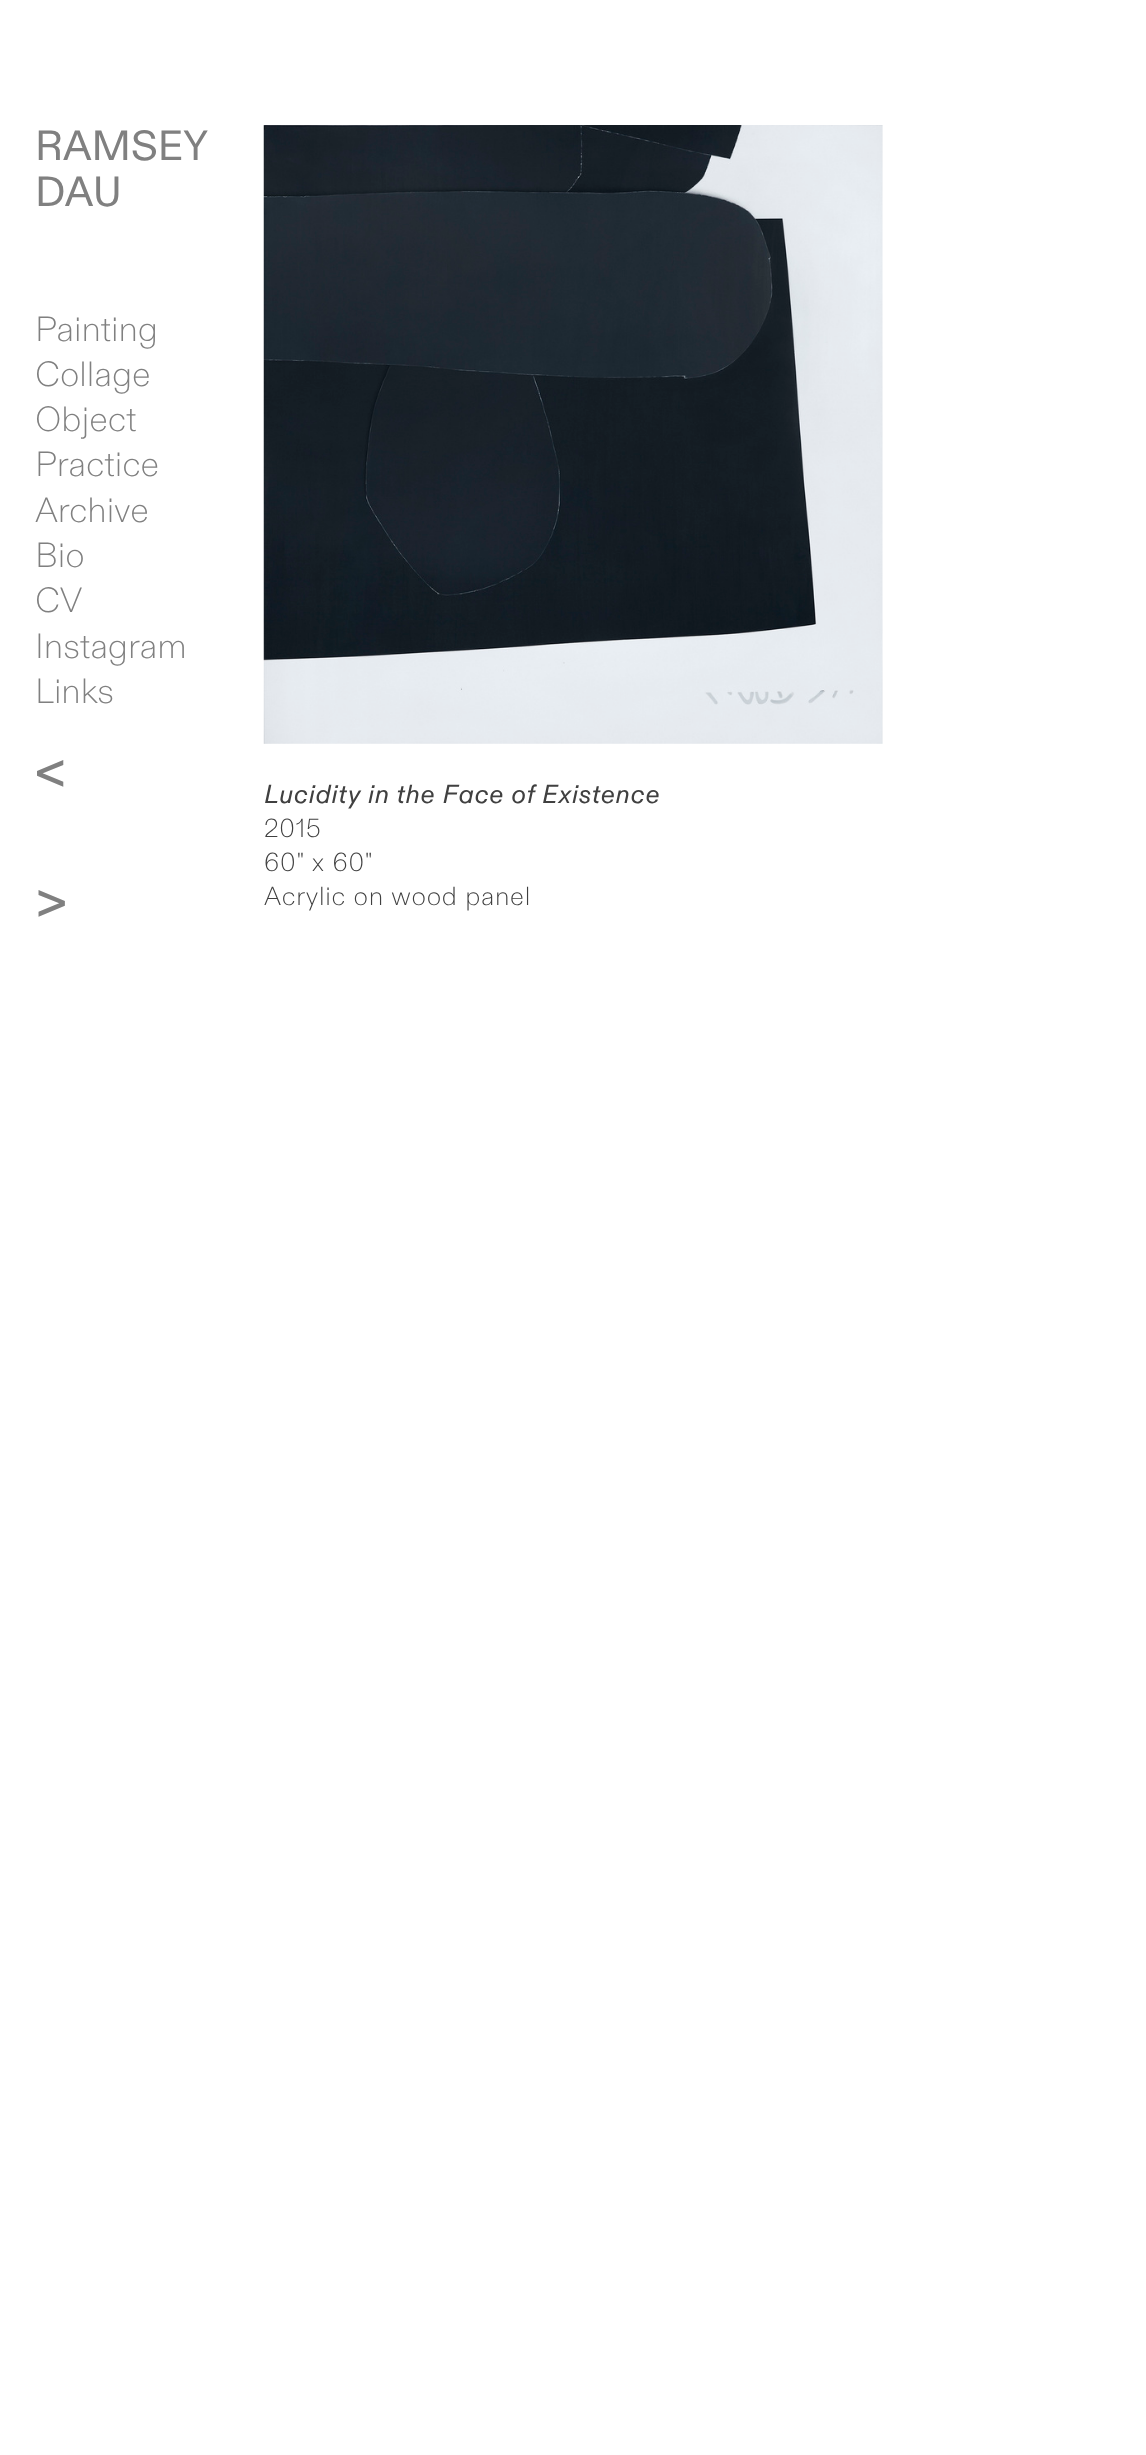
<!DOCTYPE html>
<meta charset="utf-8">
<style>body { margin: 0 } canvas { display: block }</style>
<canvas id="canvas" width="1146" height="2455"></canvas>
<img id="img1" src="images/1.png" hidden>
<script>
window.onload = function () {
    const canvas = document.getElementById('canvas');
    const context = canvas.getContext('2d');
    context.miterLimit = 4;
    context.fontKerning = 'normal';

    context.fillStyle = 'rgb(255, 255, 255)';
    context.fillRect(0, 0, 1146, 2455);
    context.drawImage(document.getElementById('img1'), 263, 125, 620, 619);
    context.font = '42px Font';
    context.fillStyle = 'rgb(128, 128, 128)';
    context.fillText('RAMSEY', 35, 160);
    context.fillText('DAU', 35, 206);
    context.font = '200 35px Font';
    context.fillText('Painting', 35, 341);
    context.fillText('Collage', 35, 386);
    context.fillText('Object', 35, 431);
    context.fillText('Practice', 35, 476);
    context.fillText('Archive', 35, 522);
    context.fillText('Bio', 35, 567);
    context.fillText('CV', 35, 612);
    context.fillText('Instagram', 35, 658);
    context.fillText('Links', 35, 703);
    context.letterSpacing = '1px';
    context.font = '59px Font';
    context.fillText('<', 35, 791);
    context.fillText('>', 35, 921);
    context.letterSpacing = '0.75px';
    context.font = 'italic 26.1px Font';
    context.fillStyle = 'rgb(64, 64, 64)';
    context.fillText('Lucidity in the Face of Existence', 264, 803);
    context.font = '200 26.1px Font';
    context.fillText('2015', 264, 837);
    context.fillText('60" x 60"', 264, 871);
    context.fillText('Acrylic on wood panel', 264, 905);
};
</script>
